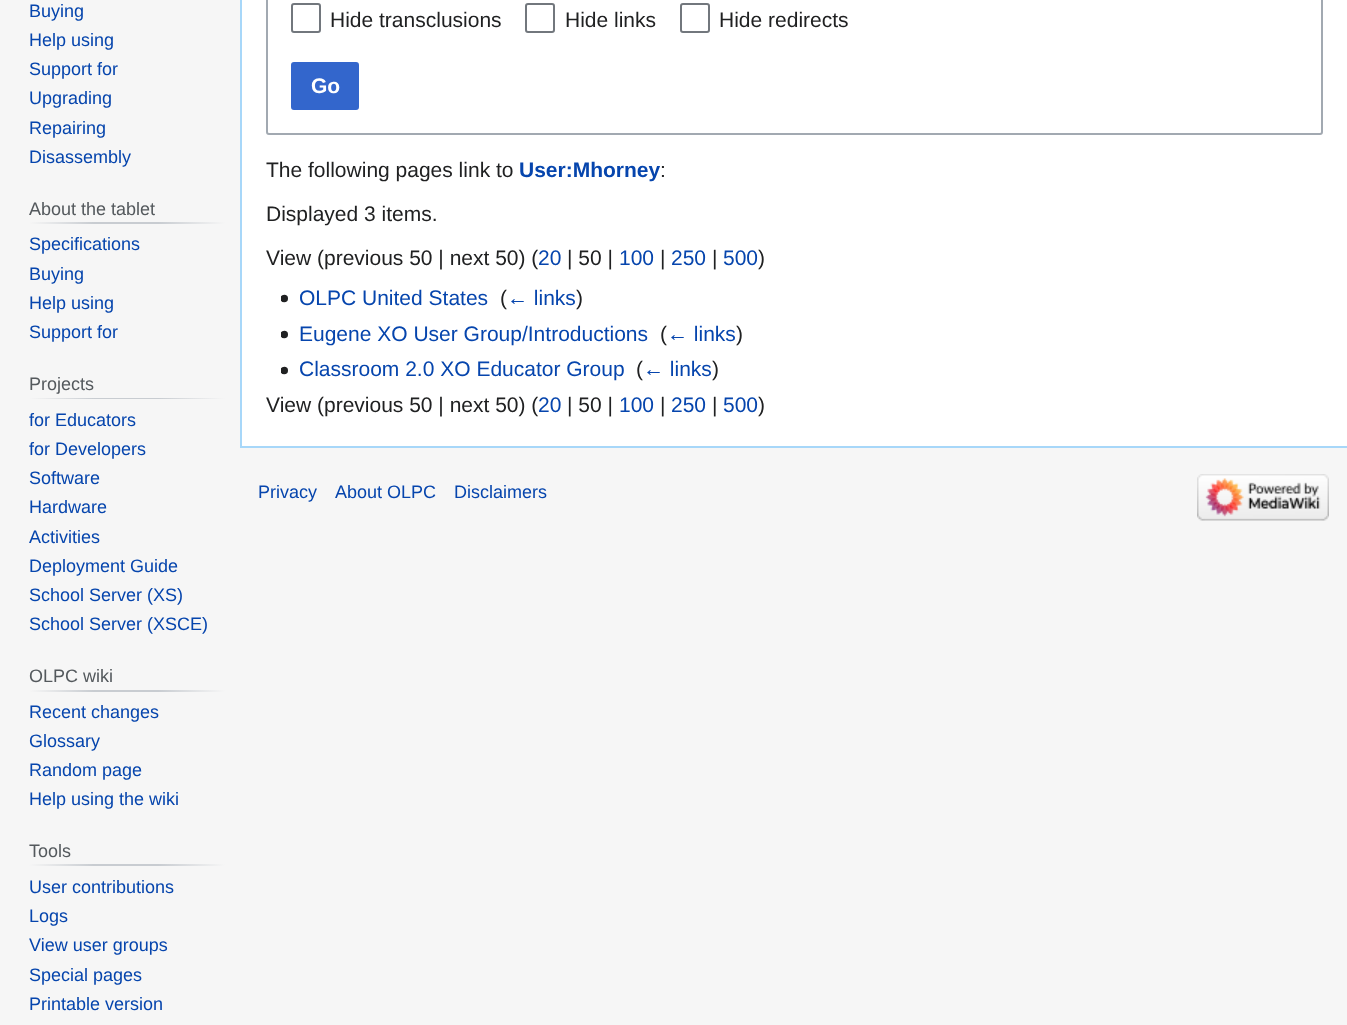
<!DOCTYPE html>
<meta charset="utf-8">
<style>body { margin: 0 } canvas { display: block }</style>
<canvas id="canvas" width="1347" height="1025"></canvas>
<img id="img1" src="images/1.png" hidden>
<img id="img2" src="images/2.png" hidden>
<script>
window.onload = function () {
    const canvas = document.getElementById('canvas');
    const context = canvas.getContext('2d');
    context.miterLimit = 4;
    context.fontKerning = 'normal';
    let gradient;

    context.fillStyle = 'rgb(246, 246, 246)';
    context.fillRect(0, 0, 1347, 1025);
    gradient = context.createLinearGradient(29, 223, 225, 223);
    gradient.addColorStop(0, 'rgb(246, 246, 246)');
    gradient.addColorStop(0.33, 'rgb(200, 204, 209)');
    gradient.addColorStop(0.66, 'rgb(200, 204, 209)');
    gradient.addColorStop(1, 'rgb(246, 246, 246)');
    context.fillStyle = gradient;
    context.fillRect(29, 222, 196, 2);
    gradient = context.createLinearGradient(29, 398, 225, 398);
    gradient.addColorStop(0, 'rgb(246, 246, 246)');
    gradient.addColorStop(0.33, 'rgb(200, 204, 209)');
    gradient.addColorStop(0.66, 'rgb(200, 204, 209)');
    gradient.addColorStop(1, 'rgb(246, 246, 246)');
    context.fillStyle = gradient;
    context.fillRect(29, 398, 196, 1);
    gradient = context.createLinearGradient(29, 691, 225, 691);
    gradient.addColorStop(0, 'rgb(246, 246, 246)');
    gradient.addColorStop(0.33, 'rgb(200, 204, 209)');
    gradient.addColorStop(0.66, 'rgb(200, 204, 209)');
    gradient.addColorStop(1, 'rgb(246, 246, 246)');
    context.fillStyle = gradient;
    context.fillRect(29, 690, 196, 2);
    gradient = context.createLinearGradient(29, 865, 225, 865);
    gradient.addColorStop(0, 'rgb(246, 246, 246)');
    gradient.addColorStop(0.33, 'rgb(200, 204, 209)');
    gradient.addColorStop(0.66, 'rgb(200, 204, 209)');
    gradient.addColorStop(1, 'rgb(246, 246, 246)');
    context.fillStyle = gradient;
    context.fillRect(29, 864, 196, 2);
    context.fillStyle = 'rgb(255, 255, 255)';
    context.fillRect(242, 0, 1105, 446);
    context.fillStyle = 'rgb(167, 215, 249)';
    context.fillRect(240, 446, 1107, 2);
    context.fillRect(240, 0, 2, 447);
    context.beginPath();
    context.roundRect(267, -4, 1055, 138, 2);
    context.strokeStyle = 'rgb(162, 169, 177)';
    context.lineWidth = 2;
    context.stroke();
    context.beginPath();
    context.roundRect(292, 4, 28, 28, 2);
    context.strokeStyle = 'rgb(114, 119, 125)';
    context.stroke();
    context.beginPath();
    context.roundRect(526, 4, 28, 28, 2);
    context.stroke();
    context.beginPath();
    context.roundRect(681, 4, 28, 28, 2);
    context.stroke();
    context.fillStyle = 'rgb(51, 102, 204)';
    context.beginPath();
    context.roundRect(292, 63, 66, 46, 2);
    context.fill();
    context.strokeStyle = 'rgb(51, 102, 204)';
    context.stroke();
    context.drawImage(document.getElementById('img1'), 281, 294, 7, 9);
    context.drawImage(document.getElementById('img1'), 281, 330, 7, 9);
    context.drawImage(document.getElementById('img1'), 281, 366, 7, 9);
    context.drawImage(document.getElementById('img2'), 1197, 474, 132, 47);
    context.font = '18px Liberation Sans';
    context.fillStyle = 'rgb(6, 69, 173)';
    context.fillText('Buying', 29, 17);
    context.fillText('Help using', 29, 46);
    context.fillText('Support for', 29, 75);
    context.fillText('Upgrading', 29, 104);
    context.fillText('Repairing', 29, 134);
    context.fillText('Disassembly', 29, 163);
    context.fillStyle = 'rgb(84, 89, 93)';
    context.fillText('About the tablet', 29, 215);
    context.fillStyle = 'rgb(6, 69, 173)';
    context.fillText('Specifications', 29, 250);
    context.fillText('Buying', 29, 280);
    context.fillText('Help using', 29, 309);
    context.fillText('Support for', 29, 338);
    context.fillStyle = 'rgb(84, 89, 93)';
    context.fillText('Projects', 29, 390);
    context.fillStyle = 'rgb(6, 69, 173)';
    context.fillText('for Educators', 29, 426);
    context.fillText('for Developers', 29, 455);
    context.fillText('Software', 29, 484);
    context.fillText('Hardware', 29, 513);
    context.fillText('Activities', 29, 543);
    context.fillText('Deployment Guide', 29, 572);
    context.fillText('School Server (XS)', 29, 601);
    context.fillText('School Server (XSCE)', 29, 630);
    context.fillStyle = 'rgb(84, 89, 93)';
    context.fillText('OLPC wiki', 29, 682);
    context.fillStyle = 'rgb(6, 69, 173)';
    context.fillText('Recent changes', 29, 718);
    context.fillText('Glossary', 29, 747);
    context.fillText('Random page', 29, 776);
    context.fillText('Help using the wiki', 29, 805);
    context.fillStyle = 'rgb(84, 89, 93)';
    context.fillText('Tools', 29, 857);
    context.fillStyle = 'rgb(6, 69, 173)';
    context.fillText('User contributions', 29, 893);
    context.fillText('Logs', 29, 922);
    context.fillText('View user groups', 29, 951);
    context.fillText('Special pages', 29, 981);
    context.fillText('Printable version', 29, 1010);
    context.font = '21px Liberation Sans';
    context.fillStyle = 'rgb(32, 33, 34)';
    context.fillText('Hide transclusions', 330, 27);
    context.fillText('Hide links', 565, 27);
    context.fillText('Hide redirects', 719, 27);
    context.font = 'bold 21px Liberation Sans';
    context.fillStyle = 'rgb(255, 255, 255)';
    context.fillText('Go', 311, 93);
    context.font = '21px Liberation Sans';
    context.fillStyle = 'rgb(32, 33, 34)';
    context.fillText('The following pages link to', 266, 177);
    context.font = 'bold 21px Liberation Sans';
    context.fillStyle = 'rgb(6, 69, 173)';
    context.fillText('User:Mhorney', 519, 177);
    context.font = '21px Liberation Sans';
    context.fillStyle = 'rgb(32, 33, 34)';
    context.fillText(':', 660, 177);
    context.fillText('Displayed 3 items.', 266, 221);
    context.fillText('View (previous 50 | next 50) (', 266, 265);
    context.fillStyle = 'rgb(6, 69, 173)';
    context.fillText('20', 538, 265);
    context.fillStyle = 'rgb(32, 33, 34)';
    context.fillText('| 50 |', 567, 265);
    context.fillStyle = 'rgb(6, 69, 173)';
    context.fillText('100', 619, 265);
    context.fillStyle = 'rgb(32, 33, 34)';
    context.fillText('|', 660, 265);
    context.fillStyle = 'rgb(6, 69, 173)';
    context.fillText('250', 671, 265);
    context.fillStyle = 'rgb(32, 33, 34)';
    context.fillText('|', 712, 265);
    context.fillStyle = 'rgb(6, 69, 173)';
    context.fillText('500', 723, 265);
    context.fillStyle = 'rgb(32, 33, 34)';
    context.fillText(')', 758, 265);
    context.fillStyle = 'rgb(6, 69, 173)';
    context.fillText('OLPC United States', 299, 305);
    context.fillStyle = 'rgb(32, 33, 34)';
    context.fillText('(', 500, 305);
    context.fillStyle = 'rgb(6, 69, 173)';
    context.fillText('← links', 507, 305);
    context.fillStyle = 'rgb(32, 33, 34)';
    context.fillText(')', 576, 305);
    context.fillStyle = 'rgb(6, 69, 173)';
    context.fillText('Eugene XO User Group/Introductions', 299, 341);
    context.fillStyle = 'rgb(32, 33, 34)';
    context.fillText('(', 660, 341);
    context.fillStyle = 'rgb(6, 69, 173)';
    context.fillText('← links', 667, 341);
    context.fillStyle = 'rgb(32, 33, 34)';
    context.fillText(')', 736, 341);
    context.fillStyle = 'rgb(6, 69, 173)';
    context.fillText('Classroom 2.0 XO Educator Group', 299, 376);
    context.fillStyle = 'rgb(32, 33, 34)';
    context.fillText('(', 636, 376);
    context.fillStyle = 'rgb(6, 69, 173)';
    context.fillText('← links', 643, 376);
    context.fillStyle = 'rgb(32, 33, 34)';
    context.fillText(')', 712, 376);
    context.fillText('View (previous 50 | next 50) (', 266, 412);
    context.fillStyle = 'rgb(6, 69, 173)';
    context.fillText('20', 538, 412);
    context.fillStyle = 'rgb(32, 33, 34)';
    context.fillText('| 50 |', 567, 412);
    context.fillStyle = 'rgb(6, 69, 173)';
    context.fillText('100', 619, 412);
    context.fillStyle = 'rgb(32, 33, 34)';
    context.fillText('|', 660, 412);
    context.fillStyle = 'rgb(6, 69, 173)';
    context.fillText('250', 671, 412);
    context.fillStyle = 'rgb(32, 33, 34)';
    context.fillText('|', 712, 412);
    context.fillStyle = 'rgb(6, 69, 173)';
    context.fillText('500', 723, 412);
    context.fillStyle = 'rgb(32, 33, 34)';
    context.fillText(')', 758, 412);
    context.font = '18px Liberation Sans';
    context.fillStyle = 'rgb(6, 69, 173)';
    context.fillText('Privacy', 258, 498);
    context.fillText('About OLPC', 335, 498);
    context.fillText('Disclaimers', 454, 498);
};
</script>
